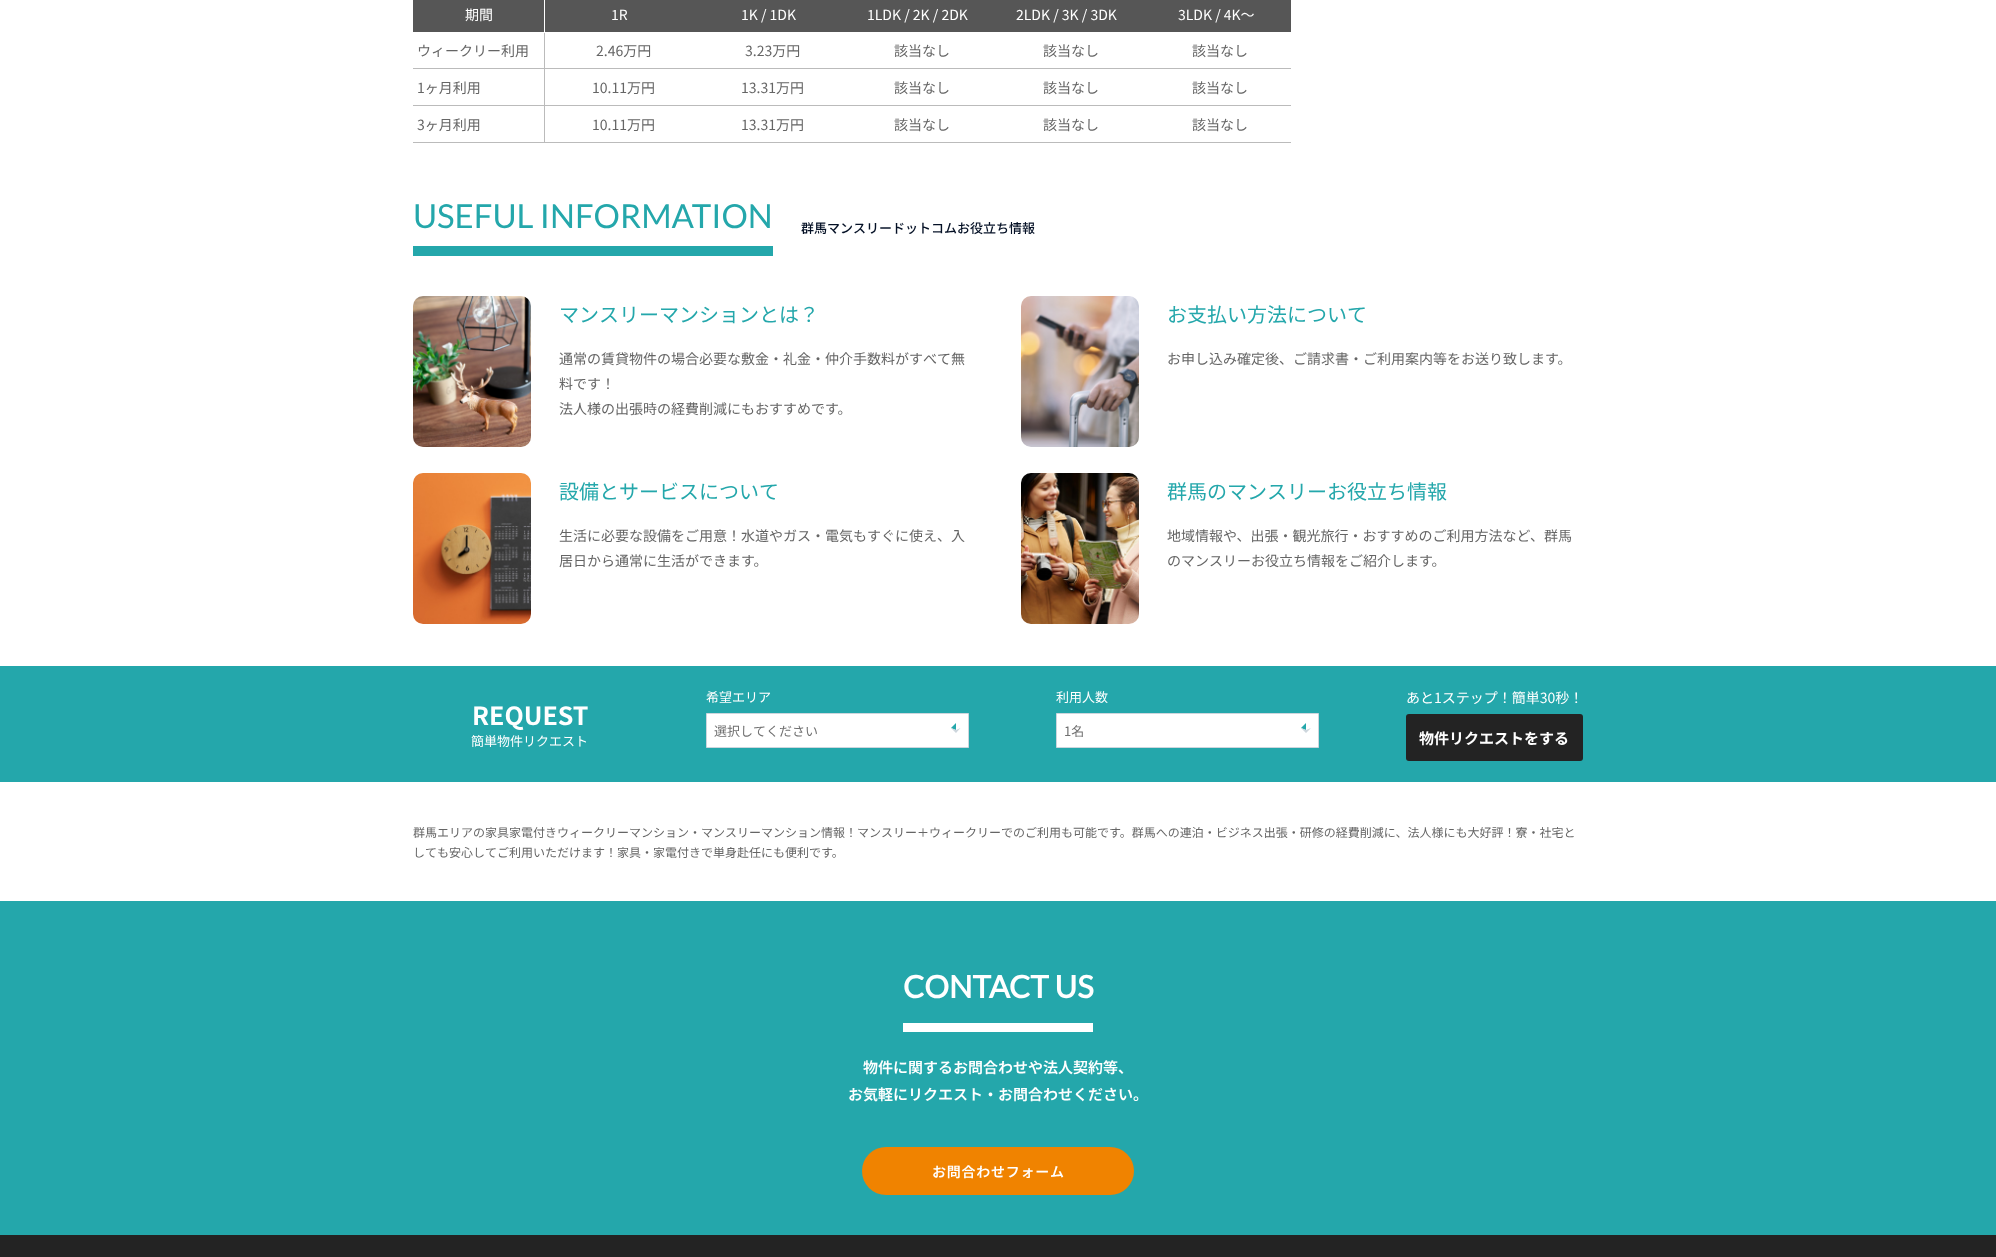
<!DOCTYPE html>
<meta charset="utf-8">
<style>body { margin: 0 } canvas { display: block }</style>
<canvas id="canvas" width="1996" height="1257"></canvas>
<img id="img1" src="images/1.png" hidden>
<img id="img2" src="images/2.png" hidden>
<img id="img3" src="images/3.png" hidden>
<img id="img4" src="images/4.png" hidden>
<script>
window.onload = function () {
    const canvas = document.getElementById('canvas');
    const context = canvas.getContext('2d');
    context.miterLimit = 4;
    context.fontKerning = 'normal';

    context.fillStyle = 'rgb(255, 255, 255)';
    context.fillRect(0, 0, 1996, 1257);
    context.fillStyle = 'rgb(86, 86, 86)';
    context.fillRect(413, 0, 878, 32);
    context.fillStyle = 'rgb(187, 187, 187)';
    context.fillRect(413, 68, 878, 1);
    context.fillRect(413, 105, 878, 1);
    context.fillRect(413, 142, 878, 1);
    context.fillRect(544, 32, 1, 111);
    context.fillStyle = 'rgb(255, 255, 255)';
    context.fillRect(544, 0, 1, 33);
    context.fillStyle = 'rgb(36, 167, 171)';
    context.fillRect(413, 246, 360, 10);
    context.drawImage(document.getElementById('img1'), 413, 296, 118, 151);
    context.drawImage(document.getElementById('img2'), 1021, 296, 118, 151);
    context.drawImage(document.getElementById('img3'), 413, 473, 118, 151);
    context.drawImage(document.getElementById('img4'), 1021, 473, 118, 151);
    context.fillRect(0, 666, 1996, 116);
    context.fillStyle = 'rgb(255, 255, 255)';
    context.beginPath();
    context.rect(706.5, 713.5, 262, 34);
    context.fill();
    context.strokeStyle = 'rgb(205, 214, 221)';
    context.stroke();
    context.fillStyle = 'rgb(36, 167, 171)';
    context.beginPath();
    context.moveTo(951, 728);
    context.lineTo(956, 723);
    context.lineTo(956, 730);
    context.closePath();
    context.fill();
    context.fillStyle = 'rgb(205, 214, 221)';
    context.beginPath();
    context.moveTo(960.5, 728);
    context.lineTo(956, 733);
    context.lineTo(956, 730);
    context.closePath();
    context.moveTo(956, 733);
    context.lineTo(951, 728);
    context.lineTo(956, 730);
    context.closePath();
    context.fill();
    context.fillStyle = 'rgb(255, 255, 255)';
    context.beginPath();
    context.rect(1056.5, 713.5, 262, 34);
    context.fill();
    context.stroke();
    context.fillStyle = 'rgb(36, 167, 171)';
    context.beginPath();
    context.moveTo(1301, 728);
    context.lineTo(1306, 723);
    context.lineTo(1306, 730);
    context.closePath();
    context.fill();
    context.fillStyle = 'rgb(205, 214, 221)';
    context.beginPath();
    context.moveTo(1311, 728);
    context.lineTo(1306, 733);
    context.lineTo(1306, 730);
    context.closePath();
    context.moveTo(1306, 733);
    context.lineTo(1301, 728);
    context.lineTo(1306, 730);
    context.closePath();
    context.fill();
    context.fillStyle = 'rgb(35, 35, 35)';
    context.beginPath();
    context.roundRect(1406, 714, 177, 47, 3);
    context.fill();
    context.fillStyle = 'rgb(36, 167, 171)';
    context.fillRect(0, 901, 1996, 334);
    context.fillStyle = 'rgb(255, 255, 255)';
    context.fillRect(903, 1023, 190, 9);
    context.fillStyle = 'rgb(240, 131, 0)';
    context.beginPath();
    context.roundRect(862, 1147, 272, 48, 24);
    context.fill();
    context.fillStyle = 'rgb(35, 35, 35)';
    context.fillRect(0, 1235, 1996, 22);
    context.font = '14px Noto Sans JP';
    context.fillStyle = 'rgb(255, 255, 255)';
    context.fillText('期間', 465, 20);
    context.fillText('1R', 611, 20);
    context.fillText('1K / 1DK', 741, 20);
    context.fillText('1LDK / 2K / 2DK', 867, 20);
    context.fillText('2LDK / 3K / 3DK', 1016, 20);
    context.fillText('3LDK / 4K～', 1178, 20);
    context.fillStyle = 'rgb(101, 101, 101)';
    context.fillText('ウィークリー利用', 417, 56);
    context.fillText('2.46万円', 596, 56);
    context.fillText('3.23万円', 745, 56);
    context.fillText('該当なし', 894, 56);
    context.fillText('該当なし', 1043, 56);
    context.fillText('該当なし', 1192, 56);
    context.fillText('1ヶ月利用', 417, 93);
    context.fillText('10.11万円', 592, 93);
    context.fillText('13.31万円', 741, 93);
    context.fillText('該当なし', 894, 93);
    context.fillText('該当なし', 1043, 93);
    context.fillText('該当なし', 1192, 93);
    context.fillText('3ヶ月利用', 417, 130);
    context.fillText('10.11万円', 592, 130);
    context.fillText('13.31万円', 741, 130);
    context.fillText('該当なし', 894, 130);
    context.fillText('該当なし', 1043, 130);
    context.fillText('該当なし', 1192, 130);
    context.font = '33px Lato';
    context.fillStyle = 'rgb(36, 167, 171)';
    context.fillText('USEFUL INFORMATION', 413, 228);
    context.font = '500 13px Noto Sans JP';
    context.fillStyle = 'rgb(4, 16, 37)';
    context.fillText('群馬マンスリードットコムお役立ち情報', 801, 233);
    context.font = '20px Noto Sans JP';
    context.fillStyle = 'rgb(36, 167, 171)';
    context.fillText('マンスリーマンションとは？', 559, 322);
    context.font = '14px Noto Sans JP';
    context.fillStyle = 'rgb(101, 101, 101)';
    context.fillText('通常の賃貸物件の場合必要な敷金・礼金・仲介手数料がすべて無', 559, 364);
    context.fillText('料です！', 559, 389);
    context.fillText('法人様の出張時の経費削減にもおすすめです。', 559, 414);
    context.font = '20px Noto Sans JP';
    context.fillStyle = 'rgb(36, 167, 171)';
    context.fillText('お支払い方法について', 1167, 322);
    context.font = '14px Noto Sans JP';
    context.fillStyle = 'rgb(101, 101, 101)';
    context.fillText('お申し込み確定後、ご請求書・ご利用案内等をお送り致します。', 1167, 364);
    context.font = '20px Noto Sans JP';
    context.fillStyle = 'rgb(36, 167, 171)';
    context.fillText('設備とサービスについて', 559, 499);
    context.font = '14px Noto Sans JP';
    context.fillStyle = 'rgb(101, 101, 101)';
    context.fillText('生活に必要な設備をご用意！水道やガス・電気もすぐに使え、入', 559, 541);
    context.fillText('居日から通常に生活ができます。', 559, 566);
    context.font = '20px Noto Sans JP';
    context.fillStyle = 'rgb(36, 167, 171)';
    context.fillText('群馬のマンスリーお役立ち情報', 1167, 499);
    context.font = '14px Noto Sans JP';
    context.fillStyle = 'rgb(101, 101, 101)';
    context.fillText('地域情報や、出張・観光旅行・おすすめのご利用方法など、群馬', 1167, 541);
    context.fillText('のマンスリーお役立ち情報をご紹介します。', 1167, 566);
    context.font = 'bold 25px Noto Sans JP';
    context.fillStyle = 'rgb(255, 255, 255)';
    context.fillText('REQUEST', 472, 725);
    context.font = '13px Noto Sans JP';
    context.fillText('簡単物件リクエスト', 471, 746);
    context.fillText('希望エリア', 706, 702);
    context.fillStyle = 'rgb(112, 112, 112)';
    context.fillText('選択してください', 714, 736);
    context.fillStyle = 'rgb(255, 255, 255)';
    context.fillText('利用人数', 1056, 702);
    context.fillStyle = 'rgb(112, 112, 112)';
    context.fillText('1名', 1064, 736);
    context.font = '14px Noto Sans JP';
    context.fillStyle = 'rgb(255, 255, 255)';
    context.fillText('あと1ステップ！簡単30秒！', 1406, 703);
    context.font = 'bold 15px Noto Sans JP';
    context.fillText('物件リクエストをする', 1419, 744);
    context.font = '12px Noto Sans JP';
    context.fillStyle = 'rgb(101, 101, 101)';
    context.fillText('群馬エリアの家具家電付きウィークリーマンション・マンスリーマンション情報！マンスリー＋ウィークリーでのご利用も可能です。群馬への連泊・ビジネス出張・研修の経費削減に、法人様にも大好評！寮・社宅と', 413, 837);
    context.fillText('しても安心してご利用いただけます！家具・家電付きで単身赴任にも便利です。', 413, 857);
    context.font = 'bold 31px Lato';
    context.fillStyle = 'rgb(255, 255, 255)';
    context.fillText('CONTACT US', 903, 998);
    context.font = '600 15px Noto Sans JP';
    context.fillText('物件に関するお問合わせや法人契約等、', 863, 1073);
    context.fillText('お気軽にリクエスト・お問合わせください。', 848, 1100);
    context.letterSpacing = '0.75px';
    context.font = '600 14px Noto Sans JP';
    context.fillText('お問合わせフォーム', 932, 1177);
};
</script>
